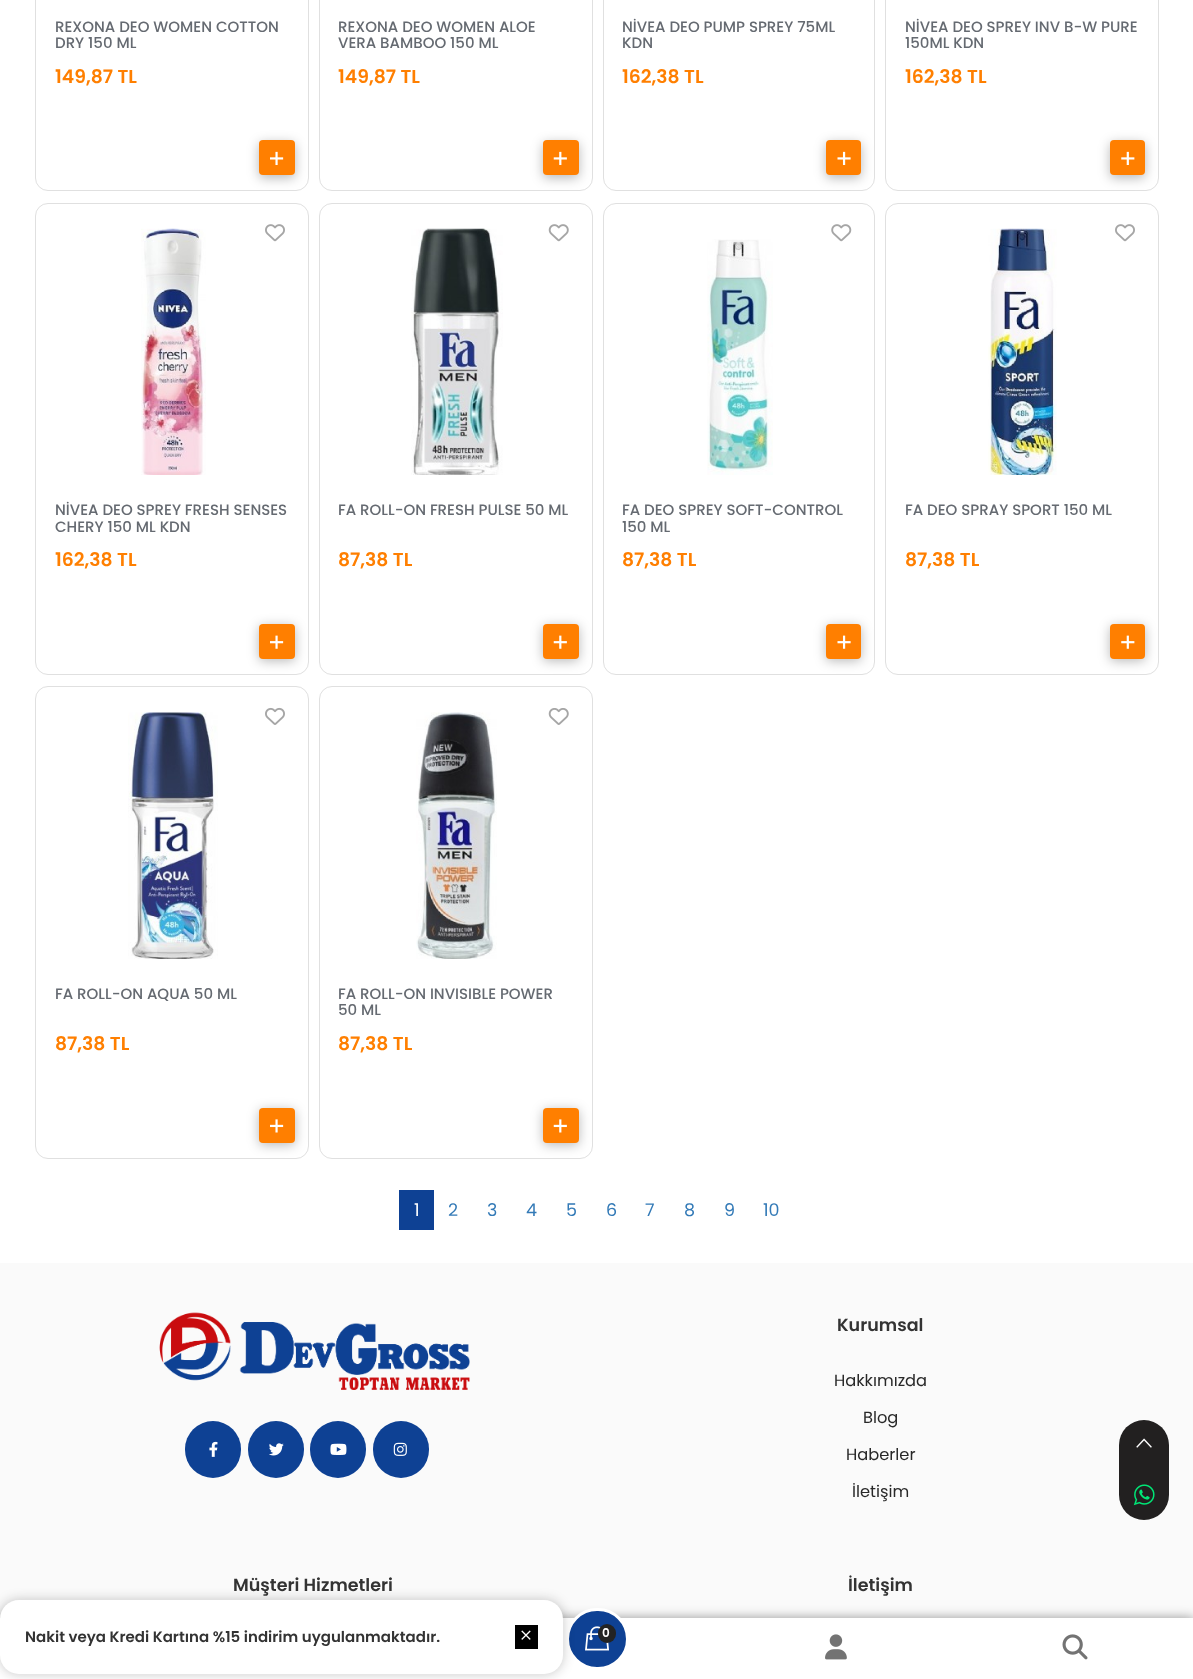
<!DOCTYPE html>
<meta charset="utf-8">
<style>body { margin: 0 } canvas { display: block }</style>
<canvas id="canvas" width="1193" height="1679"></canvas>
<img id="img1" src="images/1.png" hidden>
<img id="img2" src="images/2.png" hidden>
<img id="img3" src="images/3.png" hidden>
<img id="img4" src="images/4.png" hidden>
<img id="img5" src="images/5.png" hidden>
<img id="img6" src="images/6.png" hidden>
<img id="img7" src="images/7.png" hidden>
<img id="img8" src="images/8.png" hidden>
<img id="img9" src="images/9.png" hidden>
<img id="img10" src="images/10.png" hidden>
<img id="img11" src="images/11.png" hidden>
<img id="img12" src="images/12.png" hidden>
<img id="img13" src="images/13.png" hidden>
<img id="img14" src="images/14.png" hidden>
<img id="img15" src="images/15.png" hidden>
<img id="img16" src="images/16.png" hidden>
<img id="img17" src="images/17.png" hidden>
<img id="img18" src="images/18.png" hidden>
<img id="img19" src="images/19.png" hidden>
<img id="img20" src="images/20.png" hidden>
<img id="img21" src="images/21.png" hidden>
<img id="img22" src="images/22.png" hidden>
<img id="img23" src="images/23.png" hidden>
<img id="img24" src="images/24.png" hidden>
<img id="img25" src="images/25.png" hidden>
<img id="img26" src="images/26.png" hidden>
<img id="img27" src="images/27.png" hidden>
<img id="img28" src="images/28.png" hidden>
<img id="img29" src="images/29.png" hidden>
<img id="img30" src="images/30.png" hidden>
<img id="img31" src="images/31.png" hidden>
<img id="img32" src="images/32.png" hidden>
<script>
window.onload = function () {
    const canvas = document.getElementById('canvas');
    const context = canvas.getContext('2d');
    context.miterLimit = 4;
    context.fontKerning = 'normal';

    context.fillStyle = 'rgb(255, 255, 255)';
    context.fillRect(0, 0, 1193, 1679);
    context.beginPath();
    context.roundRect(35.5, -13.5, 273, 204, 12.5);
    context.strokeStyle = 'rgb(224, 224, 224)';
    context.stroke();
    context.fillStyle = 'rgba(0, 0, 0, 0.28)';
    context.filter = 'blur(6px)';
    context.beginPath();
    context.roundRect(259, 143, 36, 35, 4);
    context.fill();
    context.filter = 'none';
    context.fillStyle = 'rgb(255, 127, 0)';
    context.beginPath();
    context.roundRect(259, 140, 36, 35, 4);
    context.fill();
    context.drawImage(document.getElementById('img1'), 270, 151, 14, 14);
    context.beginPath();
    context.roundRect(319.5, -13.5, 273, 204, 12.5);
    context.stroke();
    context.fillStyle = 'rgba(0, 0, 0, 0.28)';
    context.filter = 'blur(6px)';
    context.beginPath();
    context.roundRect(543, 143, 36, 35, 4);
    context.fill();
    context.filter = 'none';
    context.fillStyle = 'rgb(255, 127, 0)';
    context.beginPath();
    context.roundRect(543, 140, 36, 35, 4);
    context.fill();
    context.drawImage(document.getElementById('img2'), 553, 151, 14, 14);
    context.beginPath();
    context.roundRect(603.5, -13.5, 271, 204, 12.5);
    context.stroke();
    context.fillStyle = 'rgba(0, 0, 0, 0.28)';
    context.filter = 'blur(6px)';
    context.beginPath();
    context.roundRect(826, 143, 35, 35, 4);
    context.fill();
    context.filter = 'none';
    context.fillStyle = 'rgb(255, 127, 0)';
    context.beginPath();
    context.roundRect(826, 140, 35, 35, 4);
    context.fill();
    context.drawImage(document.getElementById('img3'), 837, 151, 14, 14);
    context.beginPath();
    context.roundRect(885.5, -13.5, 273, 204, 12.5);
    context.stroke();
    context.fillStyle = 'rgba(0, 0, 0, 0.28)';
    context.filter = 'blur(6px)';
    context.beginPath();
    context.roundRect(1110, 143, 35, 35, 4);
    context.fill();
    context.filter = 'none';
    context.fillStyle = 'rgb(255, 127, 0)';
    context.beginPath();
    context.roundRect(1110, 140, 35, 35, 4);
    context.fill();
    context.drawImage(document.getElementById('img4'), 1121, 151, 14, 14);
    context.beginPath();
    context.roundRect(35.5, 203.5, 273, 471, 12.5);
    context.stroke();
    context.drawImage(document.getElementById('img5'), 141, 228, 65, 247);
    context.drawImage(document.getElementById('img6'), 265, 224, 20, 18);
    context.fillStyle = 'rgba(0, 0, 0, 0.28)';
    context.filter = 'blur(6px)';
    context.beginPath();
    context.roundRect(259, 626, 36, 35, 4);
    context.fill();
    context.filter = 'none';
    context.fillStyle = 'rgb(255, 127, 0)';
    context.beginPath();
    context.roundRect(259, 624, 36, 35, 4);
    context.fill();
    context.drawImage(document.getElementById('img7'), 270, 635, 14, 14);
    context.beginPath();
    context.roundRect(319.5, 203.5, 273, 471, 12.5);
    context.stroke();
    context.drawImage(document.getElementById('img8'), 411, 228, 92, 247);
    context.drawImage(document.getElementById('img9'), 548, 224, 21, 18);
    context.fillStyle = 'rgba(0, 0, 0, 0.28)';
    context.filter = 'blur(6px)';
    context.beginPath();
    context.roundRect(543, 626, 36, 35, 4);
    context.fill();
    context.filter = 'none';
    context.fillStyle = 'rgb(255, 127, 0)';
    context.beginPath();
    context.roundRect(543, 624, 36, 35, 4);
    context.fill();
    context.drawImage(document.getElementById('img10'), 553, 635, 14, 14);
    context.beginPath();
    context.roundRect(603.5, 203.5, 271, 471, 12.5);
    context.stroke();
    context.drawImage(document.getElementById('img11'), 831, 224, 21, 18);
    context.drawImage(document.getElementById('img12'), 707, 239, 66, 236);
    context.fillStyle = 'rgba(0, 0, 0, 0.28)';
    context.filter = 'blur(6px)';
    context.beginPath();
    context.roundRect(826, 626, 35, 35, 4);
    context.fill();
    context.filter = 'none';
    context.fillStyle = 'rgb(255, 127, 0)';
    context.beginPath();
    context.roundRect(826, 624, 35, 35, 4);
    context.fill();
    context.drawImage(document.getElementById('img13'), 837, 635, 14, 14);
    context.beginPath();
    context.roundRect(885.5, 203.5, 273, 471, 12.5);
    context.stroke();
    context.drawImage(document.getElementById('img14'), 988, 228, 69, 247);
    context.drawImage(document.getElementById('img6'), 1115, 224, 20, 18);
    context.fillStyle = 'rgba(0, 0, 0, 0.28)';
    context.filter = 'blur(6px)';
    context.beginPath();
    context.roundRect(1110, 626, 35, 35, 4);
    context.fill();
    context.filter = 'none';
    context.fillStyle = 'rgb(255, 127, 0)';
    context.beginPath();
    context.roundRect(1110, 624, 35, 35, 4);
    context.fill();
    context.drawImage(document.getElementById('img15'), 1121, 635, 14, 14);
    context.beginPath();
    context.roundRect(35.5, 686.5, 273, 472, 12.5);
    context.stroke();
    context.drawImage(document.getElementById('img16'), 128, 712, 90, 247);
    context.drawImage(document.getElementById('img17'), 265, 707, 20, 18);
    context.fillStyle = 'rgba(0, 0, 0, 0.28)';
    context.filter = 'blur(6px)';
    context.beginPath();
    context.roundRect(259, 1110, 36, 35, 4);
    context.fill();
    context.filter = 'none';
    context.fillStyle = 'rgb(255, 127, 0)';
    context.beginPath();
    context.roundRect(259, 1108, 36, 35, 4);
    context.fill();
    context.drawImage(document.getElementById('img18'), 270, 1119, 14, 14);
    context.beginPath();
    context.roundRect(319.5, 686.5, 273, 472, 12.5);
    context.stroke();
    context.drawImage(document.getElementById('img19'), 416, 712, 81, 247);
    context.drawImage(document.getElementById('img20'), 548, 708, 21, 17);
    context.fillStyle = 'rgba(0, 0, 0, 0.28)';
    context.filter = 'blur(6px)';
    context.beginPath();
    context.roundRect(543, 1110, 36, 35, 4);
    context.fill();
    context.filter = 'none';
    context.fillStyle = 'rgb(255, 127, 0)';
    context.beginPath();
    context.roundRect(543, 1108, 36, 35, 4);
    context.fill();
    context.drawImage(document.getElementById('img21'), 553, 1119, 14, 14);
    context.fillStyle = 'rgb(14, 65, 148)';
    context.fillRect(399, 1190, 35, 40);
    context.fillStyle = 'rgb(250, 250, 250)';
    context.fillRect(0, 1263, 1193, 355);
    context.drawImage(document.getElementById('img22'), 159, 1312, 311, 78);
    context.fillStyle = 'rgb(14, 65, 148)';
    context.beginPath();
    context.roundRect(185, 1421, 56, 57, 28);
    context.fill();
    context.drawImage(document.getElementById('img23'), 209, 1441, 9, 16);
    context.beginPath();
    context.roundRect(248, 1421, 56, 57, 28);
    context.fill();
    context.drawImage(document.getElementById('img24'), 269, 1443, 15, 13);
    context.beginPath();
    context.roundRect(310, 1421, 56, 57, 28);
    context.fill();
    context.drawImage(document.getElementById('img25'), 330, 1443, 17, 12);
    context.beginPath();
    context.roundRect(373, 1421, 56, 57, 28);
    context.fill();
    context.drawImage(document.getElementById('img26'), 393, 1442, 14, 14);
    context.fillStyle = 'rgb(34, 32, 32)';
    context.beginPath();
    context.roundRect(1119, 1420, 50, 50, [25, 25, 0, 0]);
    context.fill();
    context.drawImage(document.getElementById('img27'), 1136, 1438, 16, 10);
    context.beginPath();
    context.roundRect(1119, 1470, 50, 50, [0, 0, 25, 25]);
    context.fill();
    context.drawImage(document.getElementById('img28'), 1133, 1484, 22, 22);
    context.fillStyle = 'rgba(0, 0, 0, 0.4)';
    context.filter = 'blur(6px)';
    context.beginPath();
    context.rect(0, 1618, 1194, 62);
    context.fill();
    context.filter = 'none';
    context.fillStyle = 'rgb(255, 255, 255)';
    context.fillRect(0, 1618, 1193, 61);
    context.fillStyle = 'rgb(14, 65, 148)';
    context.beginPath();
    context.roundRect(567.5, 1609.5, 60, 59, 29.5);
    context.fill();
    context.strokeStyle = 'rgb(255, 255, 255)';
    context.lineWidth = 3;
    context.stroke();
    context.fillStyle = 'rgba(14, 14, 14, 0.2)';
    context.filter = 'blur(5.5px)';
    context.beginPath();
    context.roundRect(-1, 1599, 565, 76, 20);
    context.fill();
    context.filter = 'none';
    context.fillStyle = 'rgb(255, 255, 255)';
    context.beginPath();
    context.roundRect(0, 1600, 563, 74, 19);
    context.fill();
    context.fillStyle = 'rgb(0, 0, 0)';
    context.fillRect(515, 1625, 23, 24);
    context.drawImage(document.getElementById('img29'), 521, 1630, 10, 10);
    context.drawImage(document.getElementById('img30'), 585, 1626, 24, 25);
    context.fillStyle = 'rgb(35, 35, 35)';
    context.beginPath();
    context.roundRect(598, 1624, 18, 19, 9);
    context.fill();
    context.drawImage(document.getElementById('img31'), 825, 1634, 22, 26);
    context.drawImage(document.getElementById('img32'), 1062, 1634, 26, 26);
    context.font = '500 15px Poppins';
    context.fillStyle = 'rgb(101, 106, 113)';
    context.fillText('REXONA DEO WOMEN COTTON', 55, 32);
    context.fillText('DRY 150 ML', 55, 48);
    context.font = '600 18.75px Poppins';
    context.fillStyle = 'rgb(255, 127, 0)';
    context.fillText('149,87 TL', 55, 83);
    context.font = '500 15px Poppins';
    context.fillStyle = 'rgb(101, 106, 113)';
    context.fillText('REXONA DEO WOMEN ALOE', 338, 32);
    context.fillText('VERA BAMBOO 150 ML', 338, 48);
    context.font = '600 18.75px Poppins';
    context.fillStyle = 'rgb(255, 127, 0)';
    context.fillText('149,87 TL', 338, 83);
    context.font = '500 15px Poppins';
    context.fillStyle = 'rgb(101, 106, 113)';
    context.fillText('NİVEA DEO PUMP SPREY 75ML', 622, 32);
    context.fillText('KDN', 622, 48);
    context.font = '600 18.75px Poppins';
    context.fillStyle = 'rgb(255, 127, 0)';
    context.fillText('162,38 TL', 622, 83);
    context.font = '500 15px Poppins';
    context.fillStyle = 'rgb(101, 106, 113)';
    context.fillText('NİVEA DEO SPREY INV B-W PURE', 905, 32);
    context.fillText('150ML KDN', 905, 48);
    context.font = '600 18.75px Poppins';
    context.fillStyle = 'rgb(255, 127, 0)';
    context.fillText('162,38 TL', 905, 83);
    context.font = '500 15px Poppins';
    context.fillStyle = 'rgb(101, 106, 113)';
    context.fillText('NİVEA DEO SPREY FRESH SENSES', 55, 515);
    context.fillText('CHERY 150 ML KDN', 55, 532);
    context.font = '600 18.75px Poppins';
    context.fillStyle = 'rgb(255, 127, 0)';
    context.fillText('162,38 TL', 55, 566);
    context.font = '500 15px Poppins';
    context.fillStyle = 'rgb(101, 106, 113)';
    context.fillText('FA ROLL-ON FRESH PULSE 50 ML', 338, 515);
    context.font = '600 18.75px Poppins';
    context.fillStyle = 'rgb(255, 127, 0)';
    context.fillText('87,38 TL', 338, 566);
    context.font = '500 15px Poppins';
    context.fillStyle = 'rgb(101, 106, 113)';
    context.fillText('FA DEO SPREY SOFT-CONTROL', 622, 515);
    context.fillText('150 ML', 622, 532);
    context.font = '600 18.75px Poppins';
    context.fillStyle = 'rgb(255, 127, 0)';
    context.fillText('87,38 TL', 622, 566);
    context.font = '500 15px Poppins';
    context.fillStyle = 'rgb(101, 106, 113)';
    context.fillText('FA DEO SPRAY SPORT 150 ML', 905, 515);
    context.font = '600 18.75px Poppins';
    context.fillStyle = 'rgb(255, 127, 0)';
    context.fillText('87,38 TL', 905, 566);
    context.font = '500 15px Poppins';
    context.fillStyle = 'rgb(101, 106, 113)';
    context.fillText('FA ROLL-ON AQUA 50 ML', 55, 999);
    context.font = '600 18.75px Poppins';
    context.fillStyle = 'rgb(255, 127, 0)';
    context.fillText('87,38 TL', 55, 1050);
    context.font = '500 15px Poppins';
    context.fillStyle = 'rgb(101, 106, 113)';
    context.fillText('FA ROLL-ON INVISIBLE POWER', 338, 999);
    context.fillText('50 ML', 338, 1015);
    context.font = '600 18.75px Poppins';
    context.fillStyle = 'rgb(255, 127, 0)';
    context.fillText('87,38 TL', 338, 1050);
    context.font = '17.5px Poppins';
    context.fillStyle = 'rgb(255, 255, 255)';
    context.fillText('1', 414, 1216);
    context.fillStyle = 'rgb(51, 122, 183)';
    context.fillText('2', 448, 1216);
    context.fillText('3', 487, 1216);
    context.fillText('4', 526, 1216);
    context.fillText('5', 566, 1216);
    context.fillText('6', 606, 1216);
    context.fillText('7', 645, 1216);
    context.fillText('8', 684, 1216);
    context.fillText('9', 724, 1216);
    context.fillText('10', 763, 1216);
    context.font = '600 17.5px Poppins';
    context.fillStyle = 'rgb(51, 51, 51)';
    context.fillText('Kurumsal', 837, 1331);
    context.font = '16.25px Poppins';
    context.fillStyle = 'rgb(40, 40, 40)';
    context.fillText('Hakkımızda', 834, 1386);
    context.fillText('Blog', 863, 1423);
    context.fillText('Haberler', 846, 1460);
    context.fillText('İletişim', 852, 1497);
    context.font = '600 17.5px Poppins';
    context.fillStyle = 'rgb(51, 51, 51)';
    context.fillText('Müşteri Hizmetleri', 233, 1591);
    context.fillText('İletişim', 848, 1591);
    context.font = '600 15px Poppins';
    context.fillText('Nakit veya Kredi Kartına %15 indirim uygulanmaktadır.', 25, 1642);
    context.font = '600 12px Poppins';
    context.fillStyle = 'rgb(255, 255, 255)';
    context.fillText('0', 602, 1637);
};
</script>
